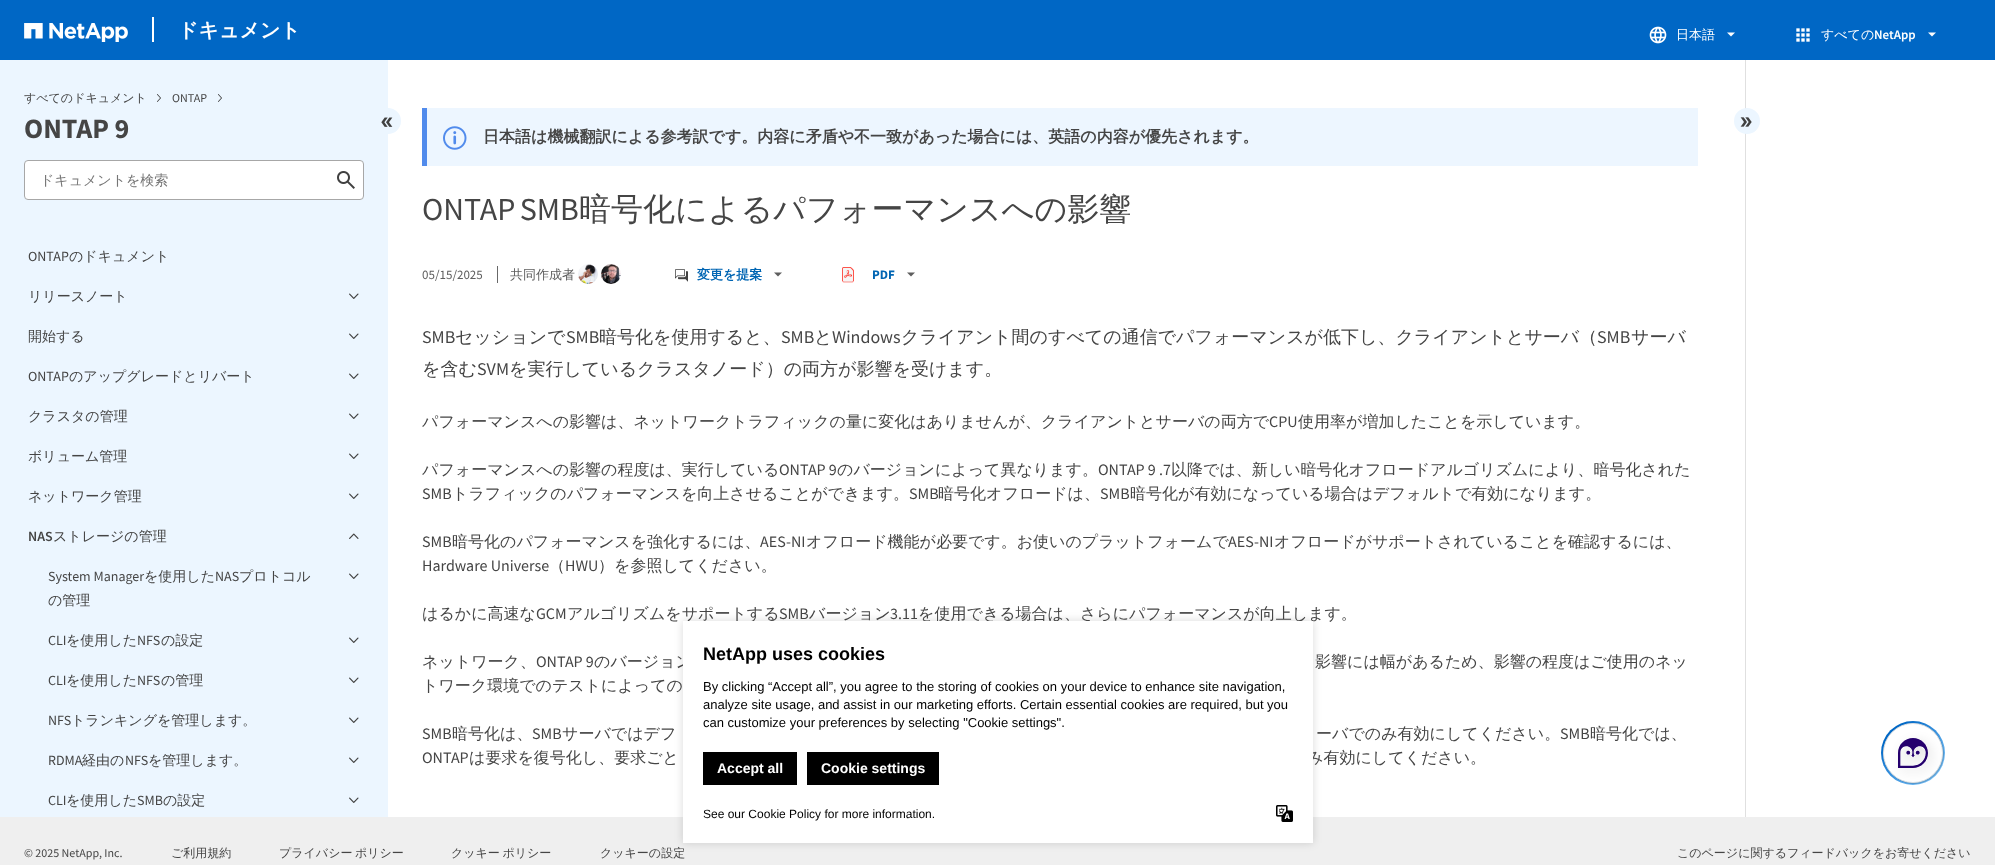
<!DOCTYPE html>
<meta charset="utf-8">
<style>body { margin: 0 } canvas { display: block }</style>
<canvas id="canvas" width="1995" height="865"></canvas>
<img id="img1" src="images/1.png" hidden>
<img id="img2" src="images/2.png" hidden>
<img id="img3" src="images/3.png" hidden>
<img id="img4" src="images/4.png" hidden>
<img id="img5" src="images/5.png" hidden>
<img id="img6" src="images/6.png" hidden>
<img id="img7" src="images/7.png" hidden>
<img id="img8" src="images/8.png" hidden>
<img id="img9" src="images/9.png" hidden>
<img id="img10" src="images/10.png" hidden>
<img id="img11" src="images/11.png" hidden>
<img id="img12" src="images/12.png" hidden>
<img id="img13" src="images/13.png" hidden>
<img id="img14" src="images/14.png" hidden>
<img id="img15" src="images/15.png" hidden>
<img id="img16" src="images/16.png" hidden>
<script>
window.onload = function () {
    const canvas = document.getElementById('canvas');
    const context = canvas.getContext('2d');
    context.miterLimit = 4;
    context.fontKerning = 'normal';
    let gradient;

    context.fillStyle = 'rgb(255, 255, 255)';
    context.fillRect(0, 0, 1995, 865);
    context.fillStyle = 'rgb(0, 103, 197)';
    context.fillRect(0, 0, 1995, 60);
    context.drawImage(document.getElementById('img1'), 24, 23, 104, 19);
    context.fillStyle = 'rgb(255, 255, 255)';
    context.fillRect(152, 17, 2, 25);
    context.drawImage(document.getElementById('img2'), 1649, 26, 18, 18);
    context.fillStyle = 'rgb(253, 253, 253)';
    context.beginPath();
    context.moveTo(1731, 36.5);
    context.lineTo(1727, 32.5);
    context.lineTo(1735, 32.5);
    context.closePath();
    context.fill();
    context.drawImage(document.getElementById('img3'), 1796, 28, 14, 14);
    context.beginPath();
    context.moveTo(1932, 36.5);
    context.lineTo(1928, 32.5);
    context.lineTo(1936, 32.5);
    context.closePath();
    context.fill();
    context.fillStyle = 'rgb(236, 246, 255)';
    context.fillRect(0, 60, 388, 757);
    context.drawImage(document.getElementById('img4'), 157, 94, 4, 8);
    context.drawImage(document.getElementById('img4'), 218, 94, 4, 8);
    context.beginPath();
    context.arc(388, 121, 13, 0, 2 * Math.PI);
    context.fill();
    context.drawImage(document.getElementById('img5'), 381, 117, 12, 10);
    context.fillStyle = 'rgb(255, 255, 255)';
    context.beginPath();
    context.roundRect(24.5, 160.5, 339, 39, 3.5);
    context.fill();
    context.strokeStyle = 'rgb(167, 167, 167)';
    context.stroke();
    context.drawImage(document.getElementById('img6'), 337, 171, 18, 18);
    context.drawImage(document.getElementById('img7'), 349, 293, 10, 6);
    context.drawImage(document.getElementById('img7'), 349, 333, 10, 6);
    context.drawImage(document.getElementById('img7'), 349, 373, 10, 6);
    context.drawImage(document.getElementById('img7'), 349, 413, 10, 6);
    context.drawImage(document.getElementById('img7'), 349, 453, 10, 6);
    context.drawImage(document.getElementById('img7'), 349, 493, 10, 6);
    context.drawImage(document.getElementById('img8'), 349, 533, 10, 6);
    context.drawImage(document.getElementById('img7'), 349, 573, 10, 6);
    context.drawImage(document.getElementById('img7'), 349, 637, 10, 6);
    context.drawImage(document.getElementById('img7'), 349, 677, 10, 6);
    context.drawImage(document.getElementById('img7'), 349, 717, 10, 6);
    context.drawImage(document.getElementById('img7'), 349, 757, 10, 6);
    context.drawImage(document.getElementById('img7'), 349, 797, 10, 6);
    context.fillStyle = 'rgb(237, 246, 255)';
    context.fillRect(427, 108, 1271, 58);
    context.fillStyle = 'rgb(81, 139, 236)';
    context.fillRect(422, 108, 5, 58);
    context.drawImage(document.getElementById('img9'), 443, 126, 24, 24);
    context.fillStyle = 'rgb(104, 104, 104)';
    context.fillRect(497, 266, 1, 17);
    context.drawImage(document.getElementById('img10'), 578, 264, 20, 20);
    context.drawImage(document.getElementById('img11'), 601, 264, 20, 20);
    context.drawImage(document.getElementById('img12'), 675, 269, 13, 13);
    context.fillStyle = 'rgb(94, 94, 94)';
    context.beginPath();
    context.moveTo(778, 276.5);
    context.lineTo(774, 272.5);
    context.lineTo(782, 272.5);
    context.closePath();
    context.fill();
    context.drawImage(document.getElementById('img13'), 842, 267, 12, 16);
    context.beginPath();
    context.moveTo(911, 276.5);
    context.lineTo(907, 272.5);
    context.lineTo(915, 272.5);
    context.closePath();
    context.fill();
    context.fillStyle = 'rgb(224, 224, 224)';
    context.fillRect(1745, 60, 1, 757);
    context.fillStyle = 'rgb(236, 246, 255)';
    context.beginPath();
    context.arc(1747, 121, 13, 0, 2 * Math.PI);
    context.fill();
    context.drawImage(document.getElementById('img14'), 1740, 117, 12, 10);
    gradient = context.createLinearGradient(1881, 721, 1945, 785);
    gradient.addColorStop(0.18, 'rgb(0, 103, 197)');
    gradient.addColorStop(0.89, 'rgb(122, 195, 250)');
    context.fillStyle = gradient;
    context.beginPath();
    context.arc(1913, 753, 32, 0, 2 * Math.PI);
    context.fill();
    context.drawImage(document.getElementById('img15'), 1883, 723, 61, 61);
    context.fillStyle = 'rgb(239, 239, 239)';
    context.fillRect(0, 817, 1995, 48);
    context.fillStyle = 'rgba(0, 0, 0, 0.15)';
    context.filter = 'blur(4px)';
    context.beginPath();
    context.rect(683, 621, 630, 222);
    context.fill();
    context.filter = 'none';
    context.font = 'bold 20px WenQuanYi Zen Hei';
    context.fillStyle = 'rgb(255, 255, 255)';
    context.fillText('ドキュメント', 178, 37);
    context.font = '500 13px WenQuanYi Zen Hei';
    context.fillText('日本語', 1676, 39);
    context.fillText('すべての', 1821, 39);
    context.font = '600 13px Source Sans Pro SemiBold';
    context.fillText('NetApp', 1874, 39);
    context.font = '500 12px WenQuanYi Zen Hei';
    context.fillStyle = 'rgb(69, 69, 69)';
    context.fillText('すべてのドキュメント', 24, 102);
    context.font = '12px Source Sans Pro';
    context.fillText('ONTAP', 172, 102);
    context.font = 'bold 28px Source Sans Pro';
    context.fillText('ONTAP 9', 24, 138);
    context.font = '500 14px WenQuanYi Zen Hei';
    context.fillStyle = 'rgb(117, 117, 117)';
    context.fillText('ドキュメントを検索', 40, 185);
    context.font = '14px Source Sans Pro';
    context.fillStyle = 'rgb(69, 69, 69)';
    context.fillText('ONTAP', 28, 261);
    context.font = '500 14px WenQuanYi Zen Hei';
    context.fillText('のドキュメント', 69, 261);
    context.fillText('リリースノート', 28, 301);
    context.fillText('開始する', 28, 341);
    context.font = '14px Source Sans Pro';
    context.fillText('ONTAP', 28, 381);
    context.font = '500 14px WenQuanYi Zen Hei';
    context.fillText('のアップグレードとリバート', 69, 381);
    context.fillText('クラスタの管理', 28, 421);
    context.fillText('ボリューム管理', 28, 461);
    context.fillText('ネットワーク管理', 28, 501);
    context.font = '600 14px Source Sans Pro SemiBold';
    context.fillText('NAS', 28, 541);
    context.font = '500 14px WenQuanYi Zen Hei';
    context.fillText('ストレージの管理', 53, 541);
    context.font = '14px Source Sans Pro';
    context.fillText('System Manager', 48, 581);
    context.font = '500 14px WenQuanYi Zen Hei';
    context.fillText('を使用した', 144, 581);
    context.font = '14px Source Sans Pro';
    context.fillText('NAS', 215, 581);
    context.font = '500 14px WenQuanYi Zen Hei';
    context.fillText('プロトコル', 239, 581);
    context.fillText('の管理', 48, 605);
    context.font = '14px Source Sans Pro';
    context.fillText('CLI', 48, 645);
    context.font = '500 14px WenQuanYi Zen Hei';
    context.fillText('を使用した', 66, 645);
    context.font = '14px Source Sans Pro';
    context.fillText('NFS', 137, 645);
    context.font = '500 14px WenQuanYi Zen Hei';
    context.fillText('の設定', 161, 645);
    context.font = '14px Source Sans Pro';
    context.fillText('CLI', 48, 685);
    context.font = '500 14px WenQuanYi Zen Hei';
    context.fillText('を使用した', 66, 685);
    context.font = '14px Source Sans Pro';
    context.fillText('NFS', 137, 685);
    context.font = '500 14px WenQuanYi Zen Hei';
    context.fillText('の管理', 161, 685);
    context.font = '14px Source Sans Pro';
    context.fillText('NFS', 48, 725);
    context.font = '500 14px WenQuanYi Zen Hei';
    context.fillText('トランキングを管理します。', 71, 725);
    context.font = '14px Source Sans Pro';
    context.fillText('RDMA', 48, 765);
    context.font = '500 14px WenQuanYi Zen Hei';
    context.fillText('経由の', 82, 765);
    context.font = '14px Source Sans Pro';
    context.fillText('NFS', 125, 765);
    context.font = '500 14px WenQuanYi Zen Hei';
    context.fillText('を管理します。', 148, 765);
    context.font = '14px Source Sans Pro';
    context.fillText('CLI', 48, 805);
    context.font = '500 14px WenQuanYi Zen Hei';
    context.fillText('を使用した', 66, 805);
    context.font = '14px Source Sans Pro';
    context.fillText('SMB', 137, 805);
    context.font = '500 14px WenQuanYi Zen Hei';
    context.fillText('の設定', 163, 805);
    context.font = 'bold 16px WenQuanYi Zen Hei';
    context.fillText('日本語は機械翻訳による参考訳です。内容に矛盾や不一致があった場合には、英語の内容が優先されます。', 483, 142);
    context.wordSpacing = '-2px';
    context.font = '32px Source Sans Pro';
    context.fillText('ONTAP SMB', 422, 220);
    context.wordSpacing = '0px';
    context.font = '500 32px WenQuanYi Zen Hei';
    context.fillText('暗号化によるパフォーマンスへの影響', 579, 220);
    context.font = '13px Source Sans Pro';
    context.fillStyle = 'rgb(94, 94, 94)';
    context.fillText('05/15/2025', 422, 279);
    context.font = '500 13px WenQuanYi Zen Hei';
    context.fillText('共同作成者', 510, 279);
    context.font = 'bold 13px WenQuanYi Zen Hei';
    context.fillStyle = 'rgb(0, 101, 179)';
    context.fillText('変更を提案', 697, 279);
    context.font = 'bold 13px Source Sans Pro';
    context.fillText('PDF', 872, 279);
    context.font = '18px Source Sans Pro';
    context.fillStyle = 'rgb(69, 69, 69)';
    context.fillText('SMB', 422, 343);
    context.font = '500 18px WenQuanYi Zen Hei';
    context.fillText('セッションで', 455, 343);
    context.font = '18px Source Sans Pro';
    context.fillText('SMB', 566, 343);
    context.font = '500 18px WenQuanYi Zen Hei';
    context.fillText('暗号化を使用すると、', 599, 343);
    context.font = '18px Source Sans Pro';
    context.fillText('SMB', 781, 343);
    context.font = '500 18px WenQuanYi Zen Hei';
    context.fillText('と', 814, 343);
    context.font = '18px Source Sans Pro';
    context.fillText('Windows', 832, 343);
    context.font = '500 18px WenQuanYi Zen Hei';
    context.fillText('クライアント間のすべての通信でパフォーマンスが低下し、クライアントとサーバ（', 901, 343);
    context.font = '18px Source Sans Pro';
    context.fillText('SMB', 1597, 343);
    context.font = '500 18px WenQuanYi Zen Hei';
    context.fillText('サーバ', 1631, 343);
    context.fillText('を含む', 422, 375);
    context.font = '18px Source Sans Pro';
    context.fillText('SVM', 477, 375);
    context.font = '500 18px WenQuanYi Zen Hei';
    context.fillText('を実行しているクラスタノード）の両方が影響を受けます。', 509, 375);
    context.font = '500 16px WenQuanYi Zen Hei';
    context.fillText('パフォーマンスへの影響は、ネットワークトラフィックの量に変化はありませんが、クライアントとサーバの両方で', 422, 427);
    context.font = '16px Source Sans Pro';
    context.fillText('CPU', 1269, 427);
    context.font = '500 16px WenQuanYi Zen Hei';
    context.fillText('使用率が増加したことを示しています。', 1298, 427);
    context.fillText('パフォーマンスへの影響の程度は、実行している', 422, 475);
    context.font = '16px Source Sans Pro';
    context.fillText('ONTAP 9', 779, 475);
    context.font = '500 16px WenQuanYi Zen Hei';
    context.fillText('のバージョンによって異なります。', 837, 475);
    context.font = '16px Source Sans Pro';
    context.fillText('ONTAP 9 .7', 1098, 475);
    context.font = '500 16px WenQuanYi Zen Hei';
    context.fillText('以降では、新しい暗号化オフロードアルゴリズムにより、暗号化された', 1171, 475);
    context.font = '16px Source Sans Pro';
    context.fillText('SMB', 422, 499);
    context.font = '500 16px WenQuanYi Zen Hei';
    context.fillText('トラフィックのパフォーマンスを向上させることができます。', 452, 499);
    context.font = '16px Source Sans Pro';
    context.fillText('SMB', 909, 499);
    context.font = '500 16px WenQuanYi Zen Hei';
    context.fillText('暗号化オフロードは、', 938, 499);
    context.font = '16px Source Sans Pro';
    context.fillText('SMB', 1100, 499);
    context.font = '500 16px WenQuanYi Zen Hei';
    context.fillText('暗号化が有効になっている場合はデフォルトで有効になります。', 1130, 499);
    context.font = '16px Source Sans Pro';
    context.fillText('SMB', 422, 547);
    context.font = '500 16px WenQuanYi Zen Hei';
    context.fillText('暗号化のパフォーマンスを強化するには、', 452, 547);
    context.font = '16px Source Sans Pro';
    context.fillText('AES-NI', 760, 547);
    context.font = '500 16px WenQuanYi Zen Hei';
    context.fillText('オフロード機能が必要です。お使いのプラットフォームで', 806, 547);
    context.font = '16px Source Sans Pro';
    context.fillText('AES-NI', 1228, 547);
    context.font = '500 16px WenQuanYi Zen Hei';
    context.fillText('オフロードがサポートされていることを確認するには、', 1274, 547);
    context.font = '16px Source Sans Pro';
    context.fillText('Hardware Universe', 422, 571);
    context.font = '500 16px WenQuanYi Zen Hei';
    context.fillText('（', 549, 571);
    context.font = '16px Source Sans Pro';
    context.fillText('HWU', 565, 571);
    context.font = '500 16px WenQuanYi Zen Hei';
    context.fillText('）を参照してください。', 598, 571);
    context.fillText('はるかに高速な', 422, 619);
    context.font = '16px Source Sans Pro';
    context.fillText('GCM', 536, 619);
    context.font = '500 16px WenQuanYi Zen Hei';
    context.fillText('アルゴリズムをサポートする', 567, 619);
    context.font = '16px Source Sans Pro';
    context.fillText('SMB', 779, 619);
    context.font = '500 16px WenQuanYi Zen Hei';
    context.fillText('バージョン', 809, 619);
    context.font = '16px Source Sans Pro';
    context.fillText('3.11', 890, 619);
    context.font = '500 16px WenQuanYi Zen Hei';
    context.fillText('を使用できる場合は、さらにパフォーマンスが向上します。', 918, 619);
    context.fillText('ネットワーク、', 422, 667);
    context.font = '16px Source Sans Pro';
    context.fillText('ONTAP 9', 536, 667);
    context.font = '500 16px WenQuanYi Zen Hei';
    context.fillText('のバージョン', 594, 667);
    context.fillText('影響には幅があるため、影響の程度はご使用のネッ', 1315, 667);
    context.fillText('トワーク環境でのテストによっての', 422, 691);
    context.font = '16px Source Sans Pro';
    context.fillText('SMB', 422, 739);
    context.font = '500 16px WenQuanYi Zen Hei';
    context.fillText('暗号化は、', 452, 739);
    context.font = '16px Source Sans Pro';
    context.fillText('SMB', 532, 739);
    context.font = '500 16px WenQuanYi Zen Hei';
    context.fillText('サーバではデフ', 562, 739);
    context.fillText('ーバでのみ有効にしてください。', 1316, 739);
    context.font = '16px Source Sans Pro';
    context.fillText('SMB', 1560, 739);
    context.font = '500 16px WenQuanYi Zen Hei';
    context.fillText('暗号化では、', 1590, 739);
    context.font = '16px Source Sans Pro';
    context.fillText('ONTAP', 422, 763);
    context.font = '500 16px WenQuanYi Zen Hei';
    context.fillText('は要求を復号化し、要求ごと', 469, 763);
    context.fillText('み有効にしてください。', 1307, 763);
    context.font = '12px Source Sans Pro';
    context.fillText('© 2025 NetApp, Inc.', 24, 857);
    context.font = '500 12px WenQuanYi Zen Hei';
    context.fillText('ご利用規約', 171, 857);
    context.wordSpacing = '-1px';
    context.fillText('プライバシー ポリシー', 279, 857);
    context.fillText('クッキー ポリシー', 451, 857);
    context.wordSpacing = '0px';
    context.fillText('クッキーの設定', 600, 857);
    context.fillText('このページに関するフィードバックをお寄せください', 1677, 857);
    context.fillStyle = 'rgb(255, 255, 255)';
    context.fillRect(683, 621, 630, 222);
    context.font = 'bold 18px Liberation Sans';
    context.fillStyle = 'rgb(0, 0, 0)';
    context.fillText('NetApp uses cookies', 703, 660);
    context.font = '13px Liberation Sans';
    context.fillText('By clicking “Accept all”, you agree to the storing of cookies on your device to enhance site navigation,', 703, 691);
    context.fillText('analyze site usage, and assist in our marketing efforts. Certain essential cookies are required, but you', 703, 709);
    context.fillText('can customize your preferences by selecting "Cookie settings".', 703, 727);
    context.fillRect(703, 752, 94, 33);
    context.font = 'bold 14px Liberation Sans';
    context.fillStyle = 'rgb(255, 255, 255)';
    context.fillText('Accept all', 717, 773);
    context.fillStyle = 'rgb(0, 0, 0)';
    context.fillRect(807, 752, 132, 33);
    context.fillStyle = 'rgb(255, 255, 255)';
    context.fillText('Cookie settings', 821, 773);
    context.font = '12px Liberation Sans';
    context.fillStyle = 'rgb(0, 0, 0)';
    context.fillText('See our Cookie Policy for more information.', 703, 818);
    context.drawImage(document.getElementById('img16'), 1276, 805, 17, 17);
};
</script>
